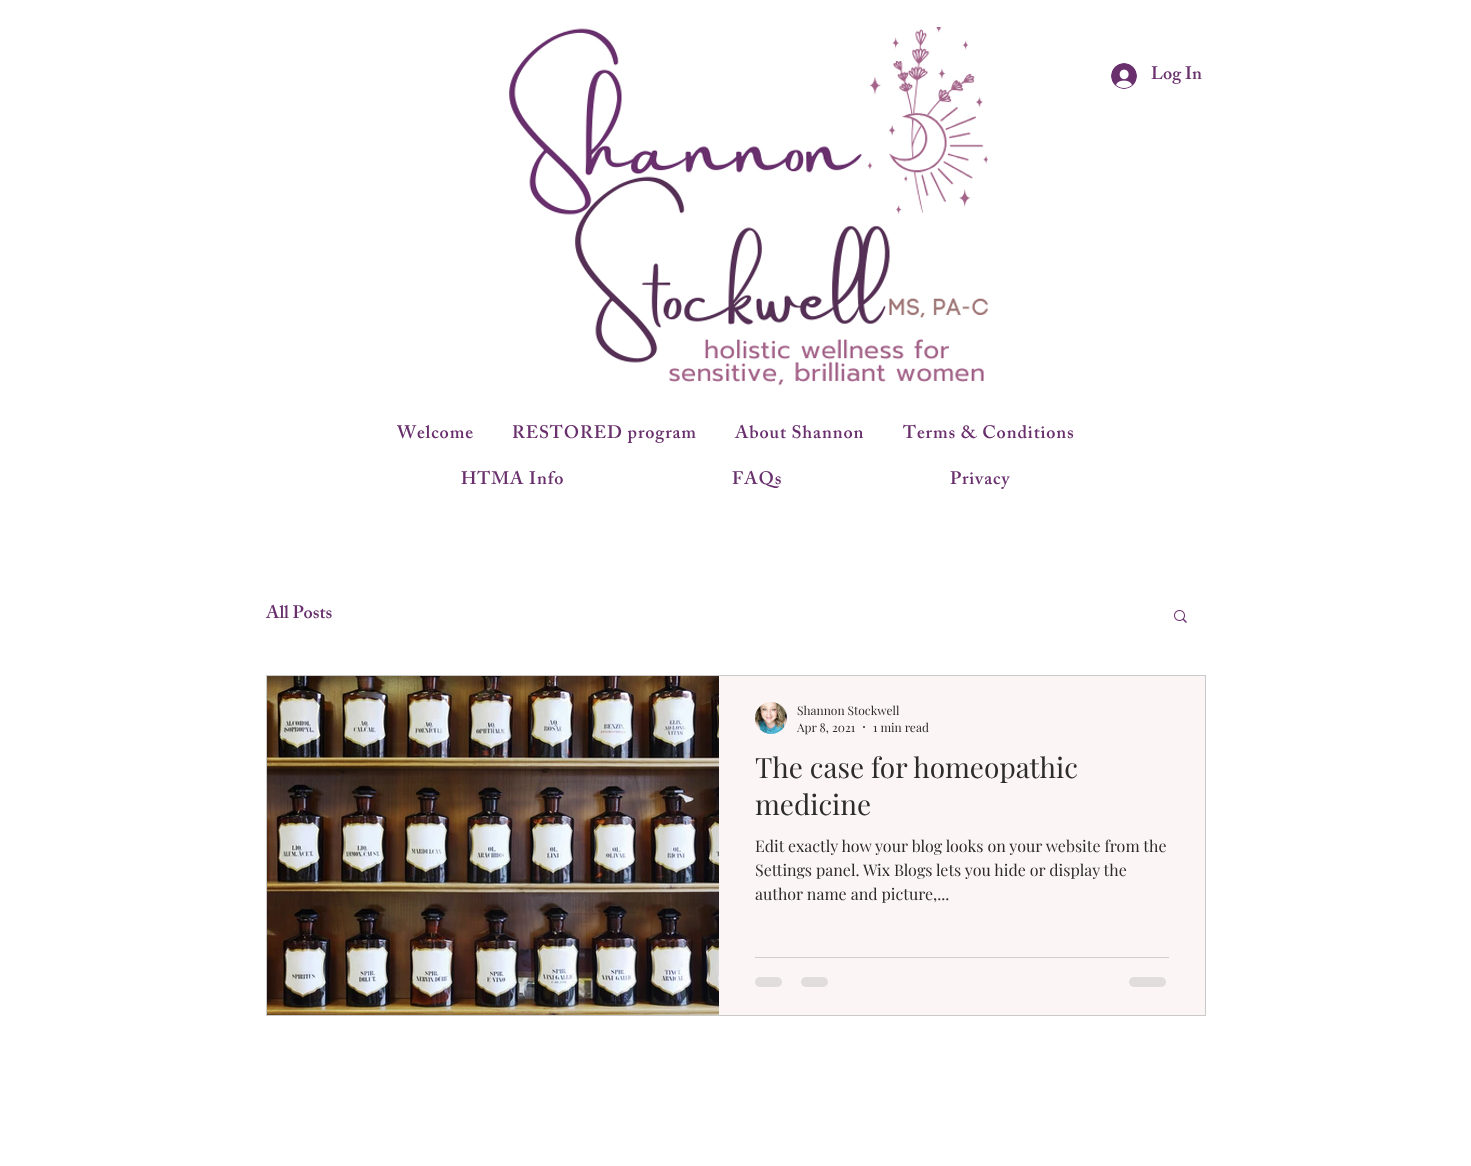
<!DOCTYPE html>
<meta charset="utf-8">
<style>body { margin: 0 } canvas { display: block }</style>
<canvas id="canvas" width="1471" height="1166"></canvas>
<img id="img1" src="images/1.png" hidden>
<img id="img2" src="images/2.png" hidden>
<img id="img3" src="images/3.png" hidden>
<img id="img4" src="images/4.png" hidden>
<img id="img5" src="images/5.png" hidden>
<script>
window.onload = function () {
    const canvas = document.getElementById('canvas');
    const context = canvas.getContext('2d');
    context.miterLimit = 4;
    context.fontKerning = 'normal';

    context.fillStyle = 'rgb(255, 255, 255)';
    context.fillRect(0, 0, 1471, 1166);
    context.drawImage(document.getElementById('img1'), 509, 27, 479, 359);
    context.drawImage(document.getElementById('img2'), 1111, 63, 26, 26);
    context.drawImage(document.getElementById('img3'), 1174, 610, 13, 13);
    context.strokeStyle = 'rgb(203, 202, 202)';
    context.strokeRect(266.5, 675.5, 939, 340);
    context.drawImage(document.getElementById('img4'), 267, 676, 452, 339);
    context.fillStyle = 'rgb(251, 245, 245)';
    context.fillRect(719, 676, 486, 339);
    context.drawImage(document.getElementById('img5'), 755, 702, 32, 32);
    context.fillStyle = 'rgb(45, 44, 42)';
    context.beginPath();
    context.arc(864, 727, 1, 0, 2 * Math.PI);
    context.fill();
    context.fillStyle = 'rgb(210, 205, 204)';
    context.fillRect(755, 957, 414, 1);
    context.fillStyle = 'rgb(226, 221, 221)';
    context.beginPath();
    context.roundRect(755, 977, 27, 10, 5);
    context.fill();
    context.beginPath();
    context.roundRect(801, 977, 27, 10, 5);
    context.fill();
    context.beginPath();
    context.roundRect(1129, 977, 37, 10, 5);
    context.fill();
    context.font = '600 18px "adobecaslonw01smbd"';
    context.fillStyle = 'rgb(105, 48, 109)';
    context.fillText('Log In', 1151, 79);
    context.letterSpacing = '0.9px';
    context.fillText('Welcome', 397, 438);
    context.fillText('RESTORED program', 512, 438);
    context.fillText('About Shannon', 735, 438);
    context.fillText('Terms & Conditions', 903, 438);
    context.fillText('HTMA Info', 461, 484);
    context.fillText('FAQs', 732, 484);
    context.fillText('Privacy', 950, 484);
    context.letterSpacing = '0px';
    context.fillText('All Posts', 266, 618);
    context.font = '12px Playfair Display';
    context.fillStyle = 'rgb(45, 44, 42)';
    context.fillText('Shannon Stockwell', 797, 715);
    context.fillText('Apr 8, 2021', 797, 732);
    context.fillText('1 min read', 873, 732);
    context.font = '28px Playfair Display';
    context.fillText('The case for homeopathic', 755, 778);
    context.fillText('medicine', 755, 815);
    context.font = '16px Playfair Display';
    context.fillText('Edit exactly how your blog looks on your website from the', 755, 852);
    context.fillText('Settings panel. Wix Blogs lets you hide or display the', 755, 876);
    context.fillText('author name and picture,...', 755, 900);
};
</script>
